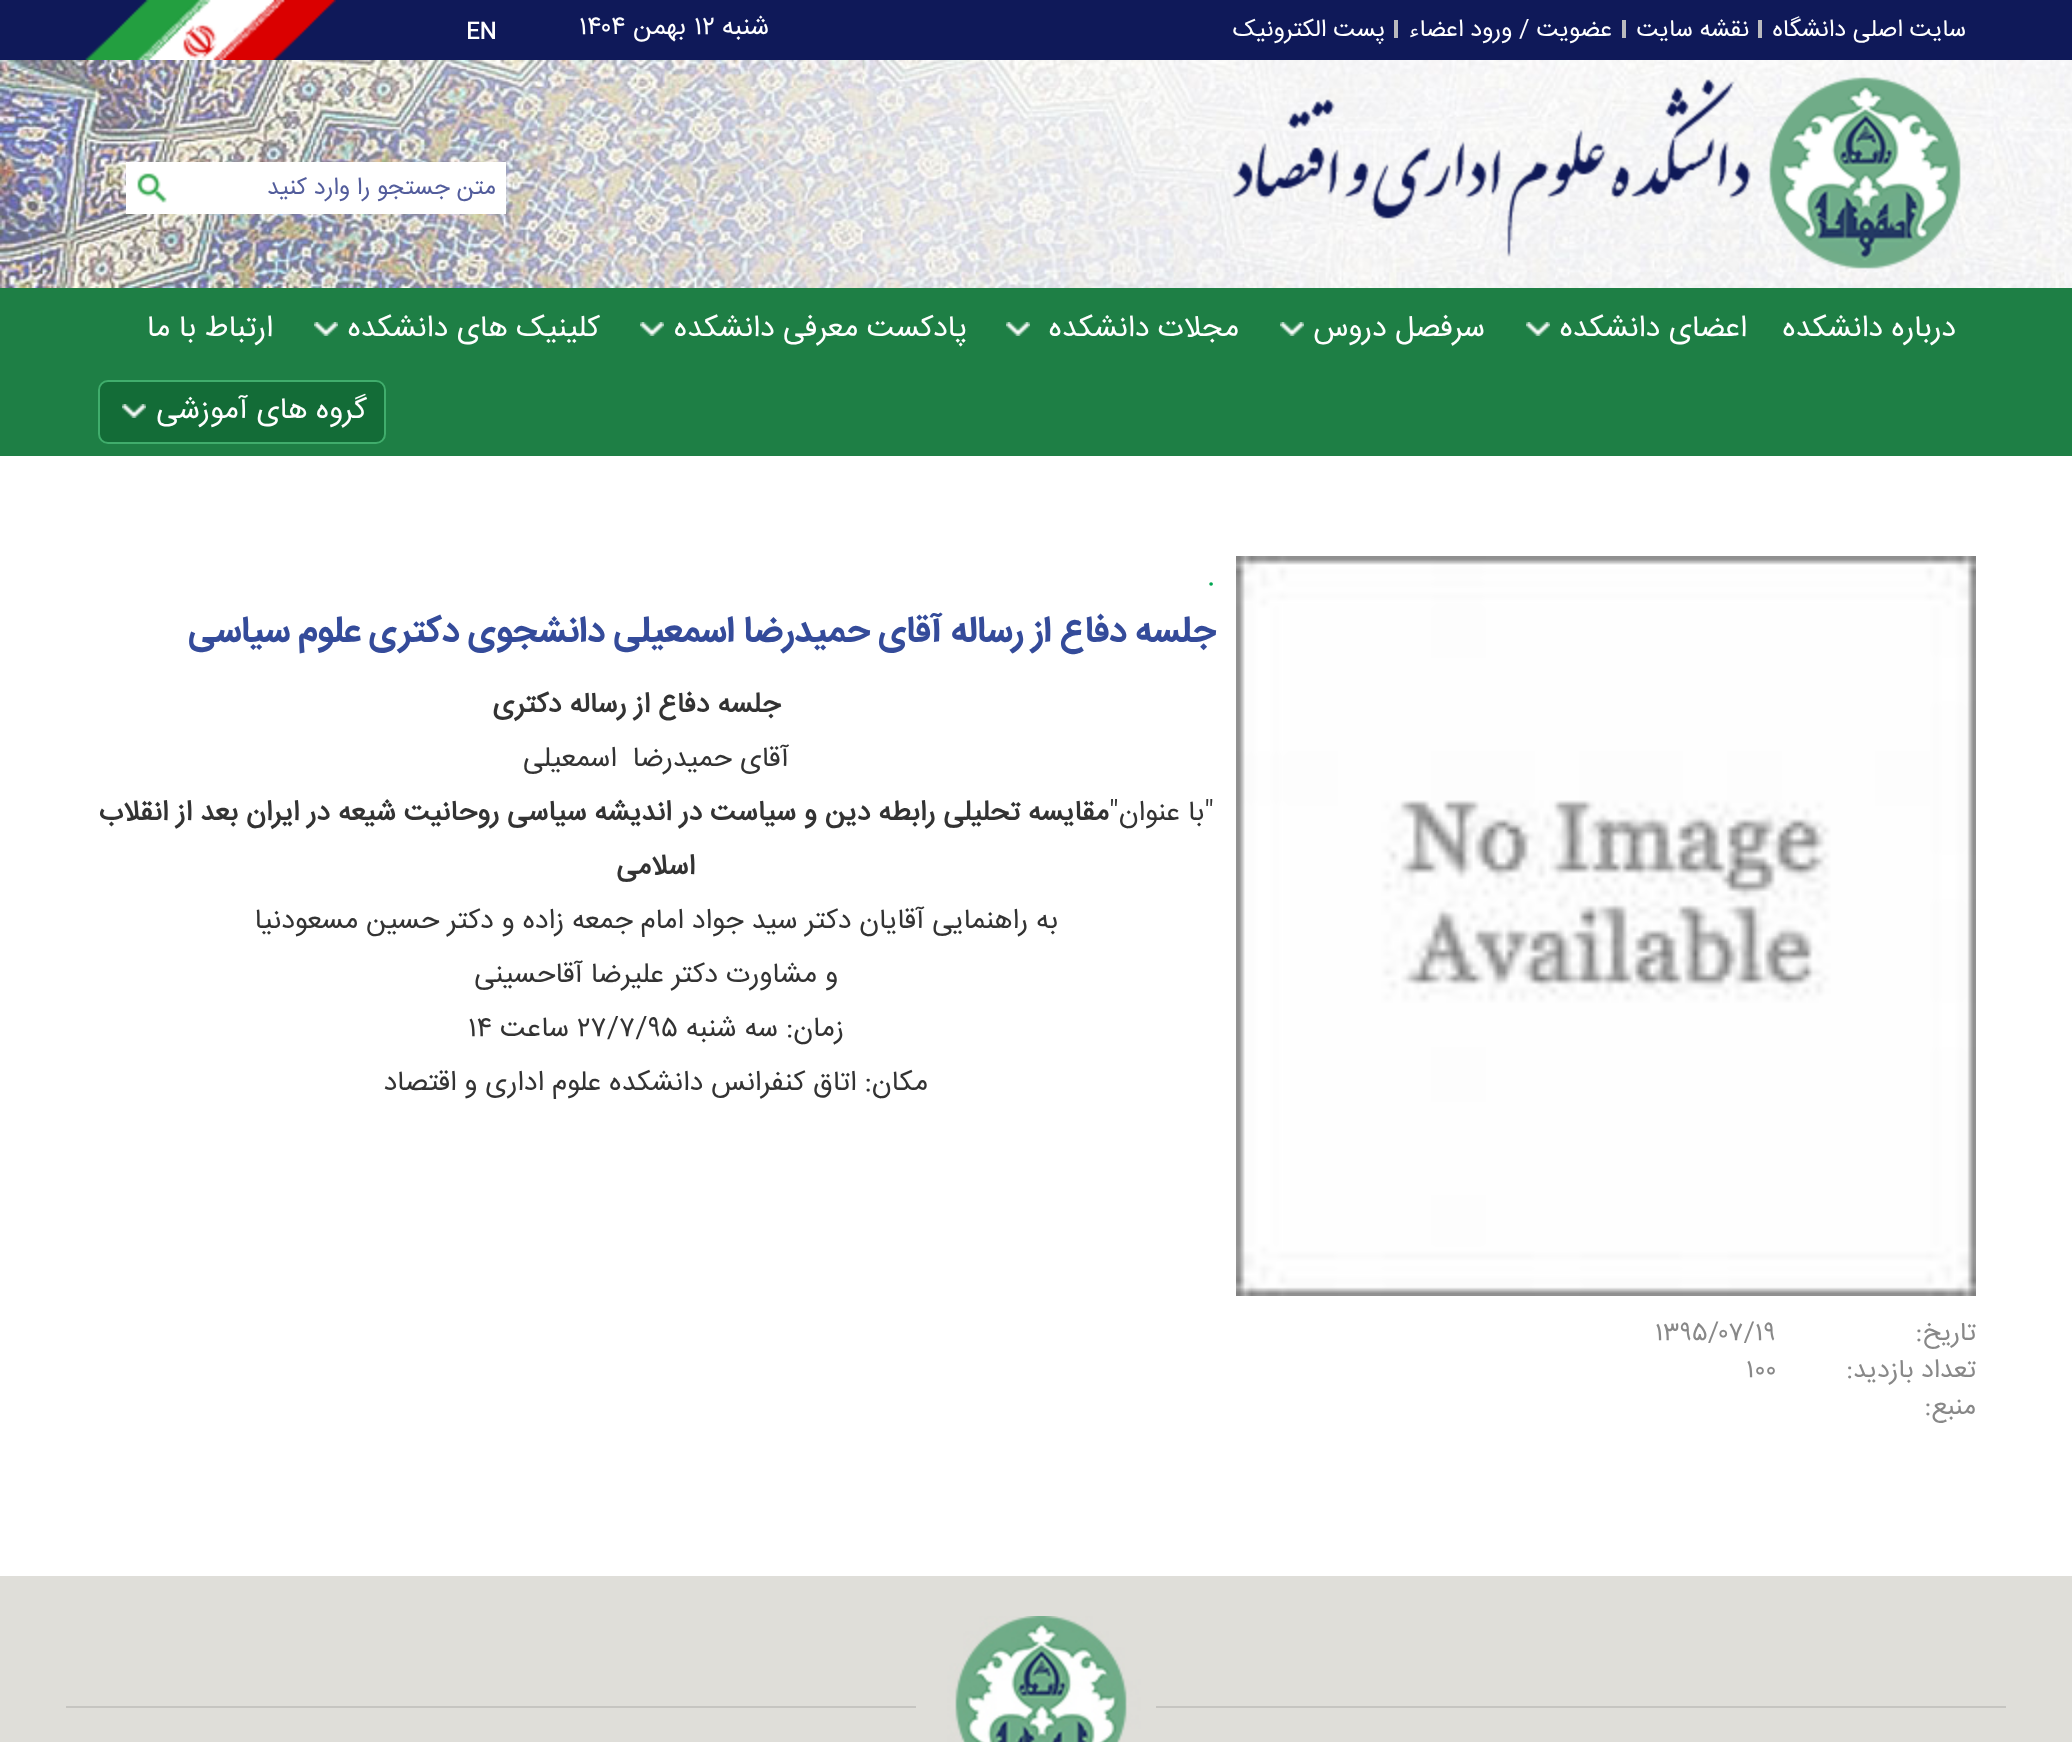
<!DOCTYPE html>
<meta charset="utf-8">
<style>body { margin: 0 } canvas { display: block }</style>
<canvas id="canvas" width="2072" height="1742"></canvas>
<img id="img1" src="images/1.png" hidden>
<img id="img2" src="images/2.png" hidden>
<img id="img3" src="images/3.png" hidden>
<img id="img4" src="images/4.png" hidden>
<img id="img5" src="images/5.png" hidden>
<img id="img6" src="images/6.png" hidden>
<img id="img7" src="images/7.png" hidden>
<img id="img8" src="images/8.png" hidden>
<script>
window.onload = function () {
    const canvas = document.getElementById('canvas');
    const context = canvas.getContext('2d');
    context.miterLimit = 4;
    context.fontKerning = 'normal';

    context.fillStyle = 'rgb(255, 255, 255)';
    context.fillRect(0, 0, 2072, 1742);
    context.fillStyle = 'rgb(15, 25, 89)';
    context.fillRect(0, 0, 2072, 60);
    context.drawImage(document.getElementById('img1'), 85, 0, 251, 60);
    context.fillStyle = 'rgb(186, 186, 190)';
    context.fillRect(1758, 20, 4, 18);
    context.fillRect(1622, 20, 4, 18);
    context.fillRect(1394, 20, 4, 18);
    context.drawImage(document.getElementById('img2'), 0, 60, 2072, 228);
    context.drawImage(document.getElementById('img3'), 1231, 77, 730, 192);
    context.fillStyle = 'rgb(255, 255, 255)';
    context.fillRect(126, 162, 380, 52);
    context.drawImage(document.getElementById('img4'), 137, 173, 30, 30);
    context.fillStyle = 'rgb(30, 127, 69)';
    context.fillRect(0, 288, 2072, 168);
    context.drawImage(document.getElementById('img5'), 1526, 322, 24, 14);
    context.drawImage(document.getElementById('img5'), 1280, 322, 24, 14);
    context.drawImage(document.getElementById('img5'), 1006, 322, 24, 14);
    context.drawImage(document.getElementById('img5'), 640, 322, 24, 14);
    context.drawImage(document.getElementById('img5'), 314, 322, 24, 14);
    context.fillStyle = 'rgb(19, 108, 55)';
    context.beginPath();
    context.roundRect(99, 381, 286, 62, 9);
    context.fill();
    context.strokeStyle = 'rgb(64, 173, 108)';
    context.lineWidth = 2;
    context.stroke();
    context.drawImage(document.getElementById('img6'), 122, 404, 24, 14);
    context.drawImage(document.getElementById('img7'), 1236, 556, 740, 740);
    context.fillStyle = 'rgb(223, 222, 217)';
    context.fillRect(0, 1576, 2072, 166);
    context.fillStyle = 'rgb(198, 197, 193)';
    context.fillRect(66, 1706, 1940, 2);
    context.drawImage(document.getElementById('img8'), 916, 1616, 240, 126);
    context.direction = 'rtl';
    context.font = '24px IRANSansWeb';
    context.fillStyle = 'rgb(255, 255, 255)';
    context.fillText('سایت اصلی دانشگاه', 1966, 36);
    context.fillText('نقشه سایت', 1749, 36);
    context.fillText('عضویت / ورود اعضاء', 1612, 36);
    context.fillText('پست الکترونیک', 1385, 36);
    context.font = '26px IRANSansWeb';
    context.fillText('شنبه', 769, 34);
    context.direction = 'ltr';
    context.fillText('۱۲', 694, 34);
    context.direction = 'rtl';
    context.fillText('بهمن', 686, 34);
    context.direction = 'ltr';
    context.fillText('۱۴۰۴', 579, 34);
    context.font = 'bold 22px "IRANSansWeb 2"';
    context.fillText('EN', 466, 38);
    context.direction = 'rtl';
    context.font = '24px IRANSansWeb';
    context.fillStyle = 'rgb(83, 93, 156)';
    context.fillText('متن جستجو را وارد کنید', 496, 194);
    context.font = '30px IRANSansWeb';
    context.fillStyle = 'rgb(255, 255, 255)';
    context.fillText('درباره دانشکده', 1956, 336);
    context.fillText('اعضای دانشکده', 1747, 336);
    context.fillText('سرفصل دروس', 1485, 336);
    context.fillText('مجلات دانشکده', 1239, 336);
    context.fillText('پادکست معرفی دانشکده', 967, 336);
    context.fillText('کلینیک های دانشکده', 600, 336);
    context.fillText('ارتباط با ما', 273, 336);
    context.fillText('گروه های آموزشی', 367, 418);
    context.direction = 'ltr';
    context.fillStyle = 'rgb(0, 166, 81)';
    context.fillText('.', 1207, 584);
    context.direction = 'rtl';
    context.font = 'bold 36px IRANSansWeb';
    context.fillStyle = 'rgb(52, 75, 154)';
    context.fillText('جلسه دفاع از رساله آقای حمیدرضا اسمعیلی دانشجوي دکتري علوم سياسي', 1216, 641);
    context.font = 'bold 28px "IRANSansWeb 2"';
    context.fillStyle = 'rgb(51, 51, 51)';
    context.fillText('جلسه دفاع از رساله دکتری', 780, 712);
    context.font = '28px IRANSansWeb';
    context.fillText('آقای حمیدرضا  اسمعیلی', 789, 766);
    context.fillText('"با عنوان"', 1214, 820);
    context.font = 'bold 28px "IRANSansWeb 2"';
    context.fillText('مقایسه تحلیلی رابطه دین و سياست در انديشه سياسي روحانيت شيعه در ايران بعد از انقلاب', 1109, 820);
    context.fillText('اسلامي', 695, 874);
    context.font = '28px IRANSansWeb';
    context.fillText('به راهنمایی آقایان دکتر سید جواد امام جمعه زاده و دکتر حسين مسعودنيا', 1058, 928);
    context.fillText('و مشاورت دکتر علیرضا آقاحسینی', 838, 982);
    context.fillText('زمان: سه شنبه', 844, 1036);
    context.direction = 'ltr';
    context.fillText('۲۷/۷/۹۵', 577, 1036);
    context.direction = 'rtl';
    context.fillText('ساعت', 569, 1036);
    context.direction = 'ltr';
    context.fillText('۱۴', 468, 1036);
    context.direction = 'rtl';
    context.fillText('مکان: اتاق کنفرانس دانشکده علوم اداری و اقتصاد', 928, 1090);
    context.font = '26px IRANSansWeb';
    context.fillStyle = 'rgb(136, 136, 136)';
    context.fillText('تاریخ:', 1976, 1340);
    context.direction = 'ltr';
    context.fillText('۱۳۹۵/۰۷/۱۹', 1655, 1340);
    context.direction = 'rtl';
    context.fillText('تعداد بازدید:', 1976, 1377);
    context.direction = 'ltr';
    context.fillText('۱۰۰', 1746, 1377);
    context.direction = 'rtl';
    context.fillText('منبع:', 1976, 1414);
};
</script>
